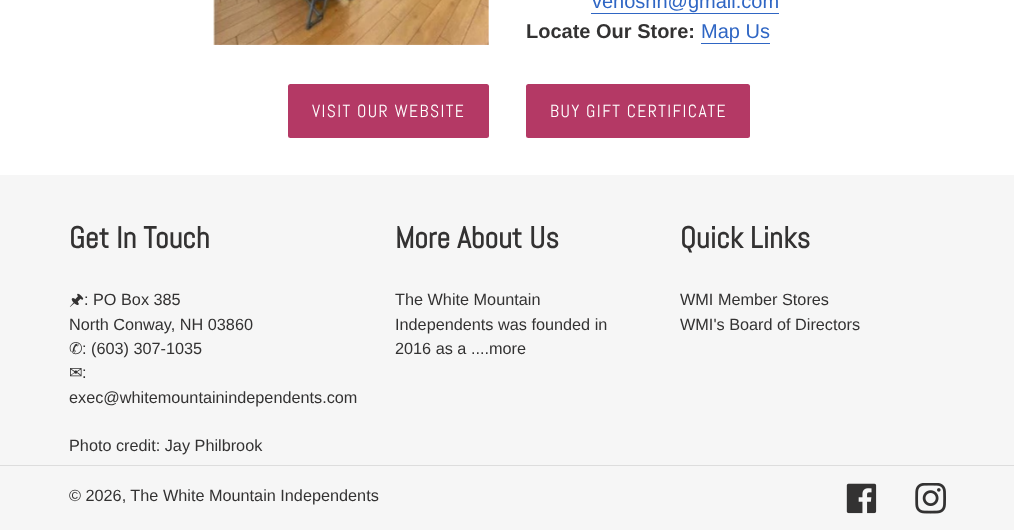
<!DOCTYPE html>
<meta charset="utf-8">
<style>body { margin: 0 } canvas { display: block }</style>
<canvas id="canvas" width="1014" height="530"></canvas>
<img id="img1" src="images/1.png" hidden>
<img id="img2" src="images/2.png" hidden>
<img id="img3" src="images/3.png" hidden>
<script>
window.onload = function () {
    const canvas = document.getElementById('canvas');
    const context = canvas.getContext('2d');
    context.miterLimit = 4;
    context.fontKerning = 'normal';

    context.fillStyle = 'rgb(255, 255, 255)';
    context.fillRect(0, 0, 1014, 530);
    context.drawImage(document.getElementById('img1'), 213, 0, 276, 45);
    context.fillStyle = 'rgb(47, 102, 196)';
    context.fillRect(591, 13, 188, 1);
    context.fillRect(701, 43, 69, 1);
    context.fillStyle = 'rgb(180, 57, 101)';
    context.beginPath();
    context.roundRect(288, 84, 201, 54, 2.5);
    context.fill();
    context.beginPath();
    context.roundRect(526, 84, 224, 54, 2.5);
    context.fill();
    context.fillStyle = 'rgb(246, 246, 246)';
    context.fillRect(0, 175, 1014, 355);
    context.fillStyle = 'rgb(221, 221, 221)';
    context.fillRect(0, 465, 1014, 1);
    context.drawImage(document.getElementById('img2'), 846, 483, 31, 31);
    context.drawImage(document.getElementById('img3'), 915, 483, 31, 31);
    context.font = '20px Liberation Sans';
    context.fillStyle = 'rgb(47, 102, 196)';
    context.fillText('venosnh@gmail.com', 592, 8);
    context.font = 'bold 20px Liberation Sans';
    context.fillStyle = 'rgb(51, 50, 50)';
    context.fillText('Locate Our Store:', 526, 38);
    context.font = '20px Liberation Sans';
    context.fillStyle = 'rgb(47, 102, 196)';
    context.fillText('Map Us', 701, 38);
    context.letterSpacing = '1.4px';
    context.font = '17.5px Abel';
    context.fillStyle = 'rgb(255, 255, 255)';
    context.fillText('VISIT OUR WEBSITE', 312, 117);
    context.fillText('BUY GIFT CERTIFICATE', 550, 117);
    context.letterSpacing = '0px';
    context.font = 'bold 30px Abel';
    context.fillStyle = 'rgb(51, 50, 50)';
    context.fillText('Get In Touch', 69, 248);
    context.font = '16.25px "Noto Sans Symbols 2"';
    context.fillText('🖈', 69, 305);
    context.font = '16.25px Liberation Sans';
    context.fillText(': PO Box 385', 84, 305);
    context.fillText('North Conway, NH 03860', 69, 330);
    context.font = '16.25px DejaVu Sans';
    context.fillText('✆', 69, 354);
    context.font = '16.25px Liberation Sans';
    context.fillText(': (603) 307-1035', 82, 354);
    context.font = '16.25px DejaVu Sans';
    context.fillText('✉', 69, 378);
    context.font = '16.25px Liberation Sans';
    context.fillText(':', 82, 378);
    context.fillText('exec@whitemountainindependents.com', 69, 403);
    context.fillText('Photo credit: Jay Philbrook', 69, 451);
    context.font = 'bold 30px Abel';
    context.fillText('More About Us', 395, 248);
    context.font = '16.25px Liberation Sans';
    context.fillText('The White Mountain', 395, 305);
    context.fillText('Independents was founded in', 395, 330);
    context.fillText('2016 as a ....more', 395, 354);
    context.font = 'bold 30px Abel';
    context.fillText('Quick Links', 680, 248);
    context.font = '16.25px Liberation Sans';
    context.fillText('WMI Member Stores', 680, 305);
    context.fillText('WMI\'s Board of Directors', 680, 330);
    context.fillText('© 2026, The White Mountain Independents', 69, 501);
};
</script>
